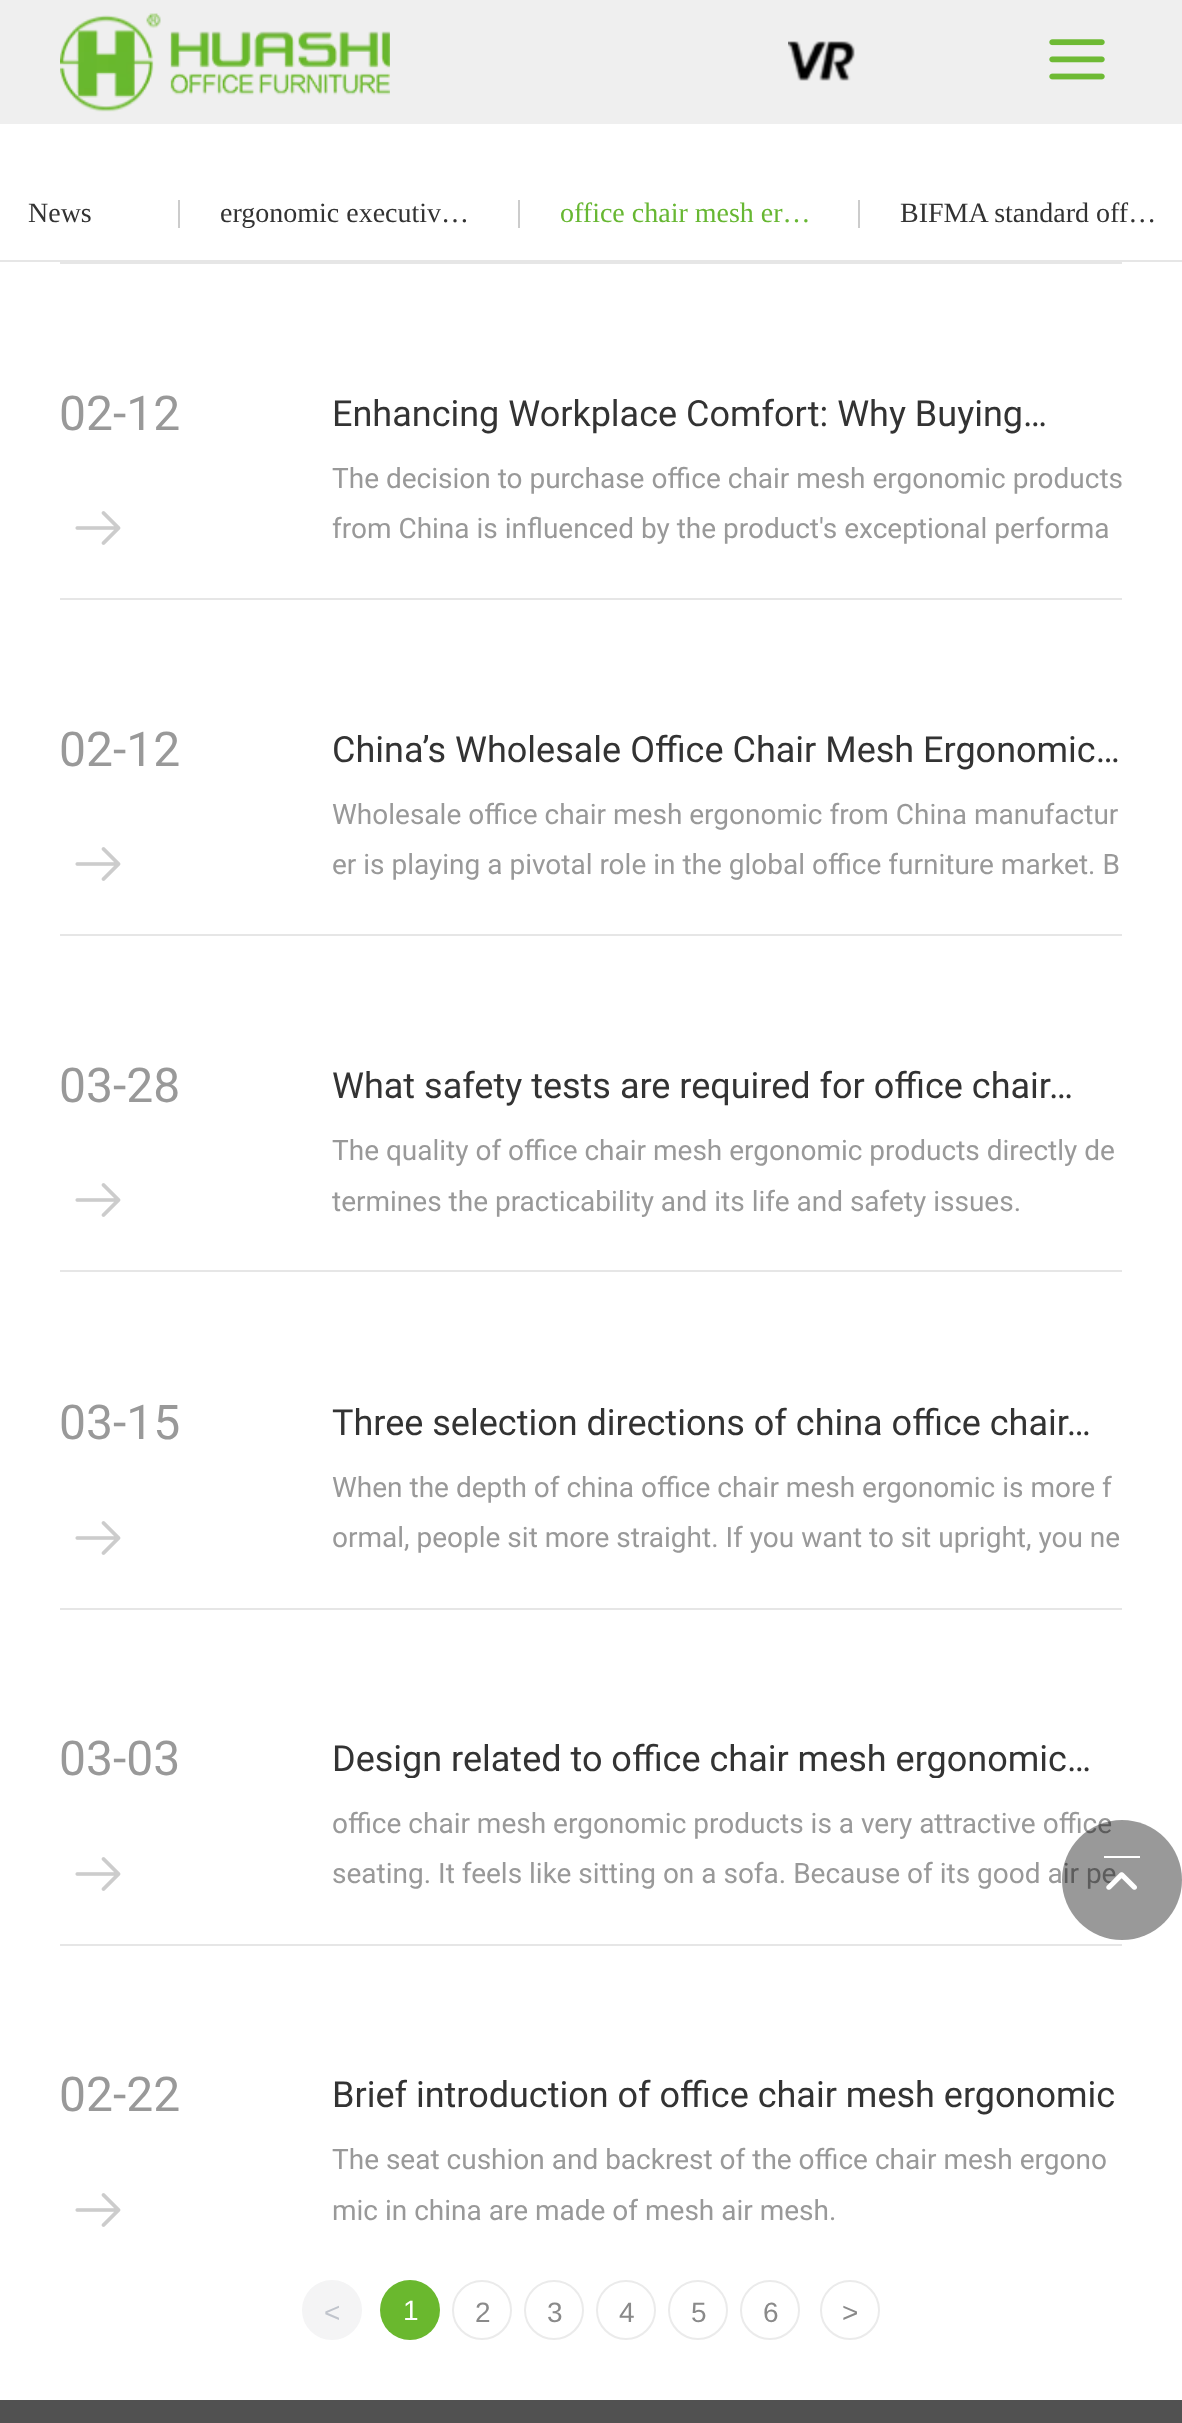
<!DOCTYPE html>
<meta charset="utf-8">
<style>body { margin: 0 } canvas { display: block }</style>
<canvas id="canvas" width="1182" height="2423"></canvas>
<img id="img1" src="images/1.png" hidden>
<img id="img2" src="images/2.png" hidden>
<img id="img3" src="images/3.png" hidden>
<img id="img4" src="images/4.png" hidden>
<img id="img5" src="images/5.png" hidden>
<script>
window.onload = function () {
    const canvas = document.getElementById('canvas');
    const context = canvas.getContext('2d');
    context.miterLimit = 4;
    context.fontKerning = 'normal';

    context.fillStyle = 'rgb(255, 255, 255)';
    context.fillRect(0, 0, 1182, 2423);
    context.fillStyle = 'rgb(239, 239, 239)';
    context.fillRect(0, 0, 1182, 124);
    context.drawImage(document.getElementById('img1'), 60, 13, 330, 99);
    context.drawImage(document.getElementById('img2'), 788, 41, 67, 40);
    context.drawImage(document.getElementById('img3'), 1049, 39, 56, 41);
    context.fillStyle = 'rgb(230, 230, 230)';
    context.fillRect(0, 260, 1182, 2);
    context.fillStyle = 'rgb(204, 204, 204)';
    context.fillRect(178, 200, 2, 28);
    context.fillRect(518, 200, 2, 28);
    context.fillRect(858, 200, 2, 28);
    context.fillStyle = 'rgb(230, 230, 230)';
    context.fillRect(60, 262, 1062, 2);
    context.drawImage(document.getElementById('img4'), 75, 511, 46, 34);
    context.fillRect(60, 598, 1062, 2);
    context.drawImage(document.getElementById('img4'), 75, 847, 46, 34);
    context.fillRect(60, 934, 1062, 2);
    context.drawImage(document.getElementById('img4'), 75, 1183, 46, 34);
    context.fillRect(60, 1270, 1062, 2);
    context.drawImage(document.getElementById('img4'), 75, 1521, 46, 34);
    context.fillRect(60, 1608, 1062, 2);
    context.drawImage(document.getElementById('img4'), 75, 1857, 46, 34);
    context.fillRect(60, 1944, 1062, 2);
    context.drawImage(document.getElementById('img4'), 75, 2193, 46, 34);
    context.fillStyle = 'rgb(244, 244, 245)';
    context.beginPath();
    context.arc(332, 2310, 29, 0, 2 * Math.PI);
    context.fill();
    context.strokeStyle = 'rgb(244, 244, 245)';
    context.lineWidth = 2;
    context.stroke();
    context.fillStyle = 'rgb(106, 184, 46)';
    context.beginPath();
    context.arc(410, 2310, 30, 0, 2 * Math.PI);
    context.fill();
    context.beginPath();
    context.arc(482, 2310, 29, 0, 2 * Math.PI);
    context.strokeStyle = 'rgb(235, 235, 235)';
    context.stroke();
    context.beginPath();
    context.arc(554, 2310, 29, 0, 2 * Math.PI);
    context.stroke();
    context.beginPath();
    context.arc(626, 2310, 29, 0, 2 * Math.PI);
    context.stroke();
    context.beginPath();
    context.arc(698, 2310, 29, 0, 2 * Math.PI);
    context.stroke();
    context.beginPath();
    context.arc(770, 2310, 29, 0, 2 * Math.PI);
    context.stroke();
    context.beginPath();
    context.arc(850, 2310, 29, 0, 2 * Math.PI);
    context.stroke();
    context.fillStyle = 'rgb(81, 81, 81)';
    context.fillRect(0, 2400, 1182, 23);
    context.font = '28px Liberation Serif';
    context.fillStyle = 'rgb(51, 51, 51)';
    context.fillText('News', 28, 222);
    context.fillText('ergonomic executiv…', 220, 222);
    context.fillStyle = 'rgb(103, 183, 50)';
    context.fillText('office chair mesh er…', 560, 222);
    context.fillStyle = 'rgb(51, 51, 51)';
    context.fillText('BIFMA standard off…', 900, 222);
    context.font = '48px Roboto';
    context.fillStyle = 'rgb(153, 153, 153)';
    context.fillText('02-12', 59, 430);
    context.font = '36px Roboto';
    context.fillStyle = 'rgb(51, 51, 51)';
    context.fillText('Enhancing Workplace Comfort: Why Buying…', 332, 426);
    context.font = '28px Roboto';
    context.fillStyle = 'rgb(153, 153, 153)';
    context.fillText('The decision to purchase office chair mesh ergonomic products', 332, 488);
    context.fillText('from China is influenced by the product\'s exceptional performa', 332, 538);
    context.font = '48px Roboto';
    context.fillText('02-12', 59, 766);
    context.font = '36px Roboto';
    context.fillStyle = 'rgb(51, 51, 51)';
    context.fillText('China’s Wholesale Office Chair Mesh Ergonomic…', 332, 762);
    context.font = '28px Roboto';
    context.fillStyle = 'rgb(153, 153, 153)';
    context.fillText('Wholesale office chair mesh ergonomic from China manufactur', 332, 824);
    context.fillText('er is playing a pivotal role in the global office furniture market. B', 332, 874);
    context.font = '48px Roboto';
    context.fillText('03-28', 59, 1102);
    context.font = '36px Roboto';
    context.fillStyle = 'rgb(51, 51, 51)';
    context.fillText('What safety tests are required for office chair…', 332, 1098);
    context.font = '28px Roboto';
    context.fillStyle = 'rgb(153, 153, 153)';
    context.fillText('The quality of office chair mesh ergonomic products directly de', 332, 1160);
    context.fillText('termines the practicability and its life and safety issues.', 332, 1211);
    context.font = '48px Roboto';
    context.fillText('03-15', 59, 1439);
    context.font = '36px Roboto';
    context.fillStyle = 'rgb(51, 51, 51)';
    context.fillText('Three selection directions of china office chair…', 332, 1435);
    context.font = '28px Roboto';
    context.fillStyle = 'rgb(153, 153, 153)';
    context.fillText('When the depth of china office chair mesh ergonomic is more f', 332, 1497);
    context.fillText('ormal, people sit more straight. If you want to sit upright, you ne', 332, 1547);
    context.font = '48px Roboto';
    context.fillText('03-03', 59, 1775);
    context.save();
    context.beginPath();
    context.rect(332, 1736, 790, 42);
    context.clip();
    context.font = '36px Roboto';
    context.fillStyle = 'rgb(51, 51, 51)';
    context.fillText('Design related to office chair mesh ergonomic…', 332, 1771);
    context.restore();
    context.font = '28px Roboto';
    context.fillText('office chair mesh ergonomic products is a very attractive office', 332, 1833);
    context.fillText('seating. It feels like sitting on a sofa. Because of its good air pe', 332, 1883);
    context.font = '48px Roboto';
    context.fillText('02-22', 59, 2111);
    context.font = '36px Roboto';
    context.fillStyle = 'rgb(51, 51, 51)';
    context.fillText('Brief introduction of office chair mesh ergonomic', 332, 2107);
    context.font = '28px Roboto';
    context.fillStyle = 'rgb(153, 153, 153)';
    context.fillText('The seat cushion and backrest of the office chair mesh ergono', 332, 2169);
    context.fillText('mic in china are made of mesh air mesh.', 332, 2220);
    context.font = '28px Liberation Sans';
    context.fillStyle = 'rgb(192, 196, 204)';
    context.fillText('<', 324, 2322);
    context.fillStyle = 'rgb(255, 255, 255)';
    context.fillText('1', 403, 2320);
    context.fillStyle = 'rgb(138, 138, 138)';
    context.fillText('2', 475, 2322);
    context.fillText('3', 547, 2322);
    context.fillText('4', 619, 2322);
    context.fillText('5', 691, 2322);
    context.fillText('6', 763, 2322);
    context.fillText('>', 842, 2322);
    context.fillStyle = 'rgba(0, 0, 0, 0.4)';
    context.beginPath();
    context.arc(1122, 1880, 60, 0, 2 * Math.PI);
    context.fill();
    context.fillStyle = 'rgb(255, 255, 255)';
    context.fillRect(1104, 1856, 36, 2);
    context.drawImage(document.getElementById('img5'), 1106, 1872, 31, 18);
};
</script>
